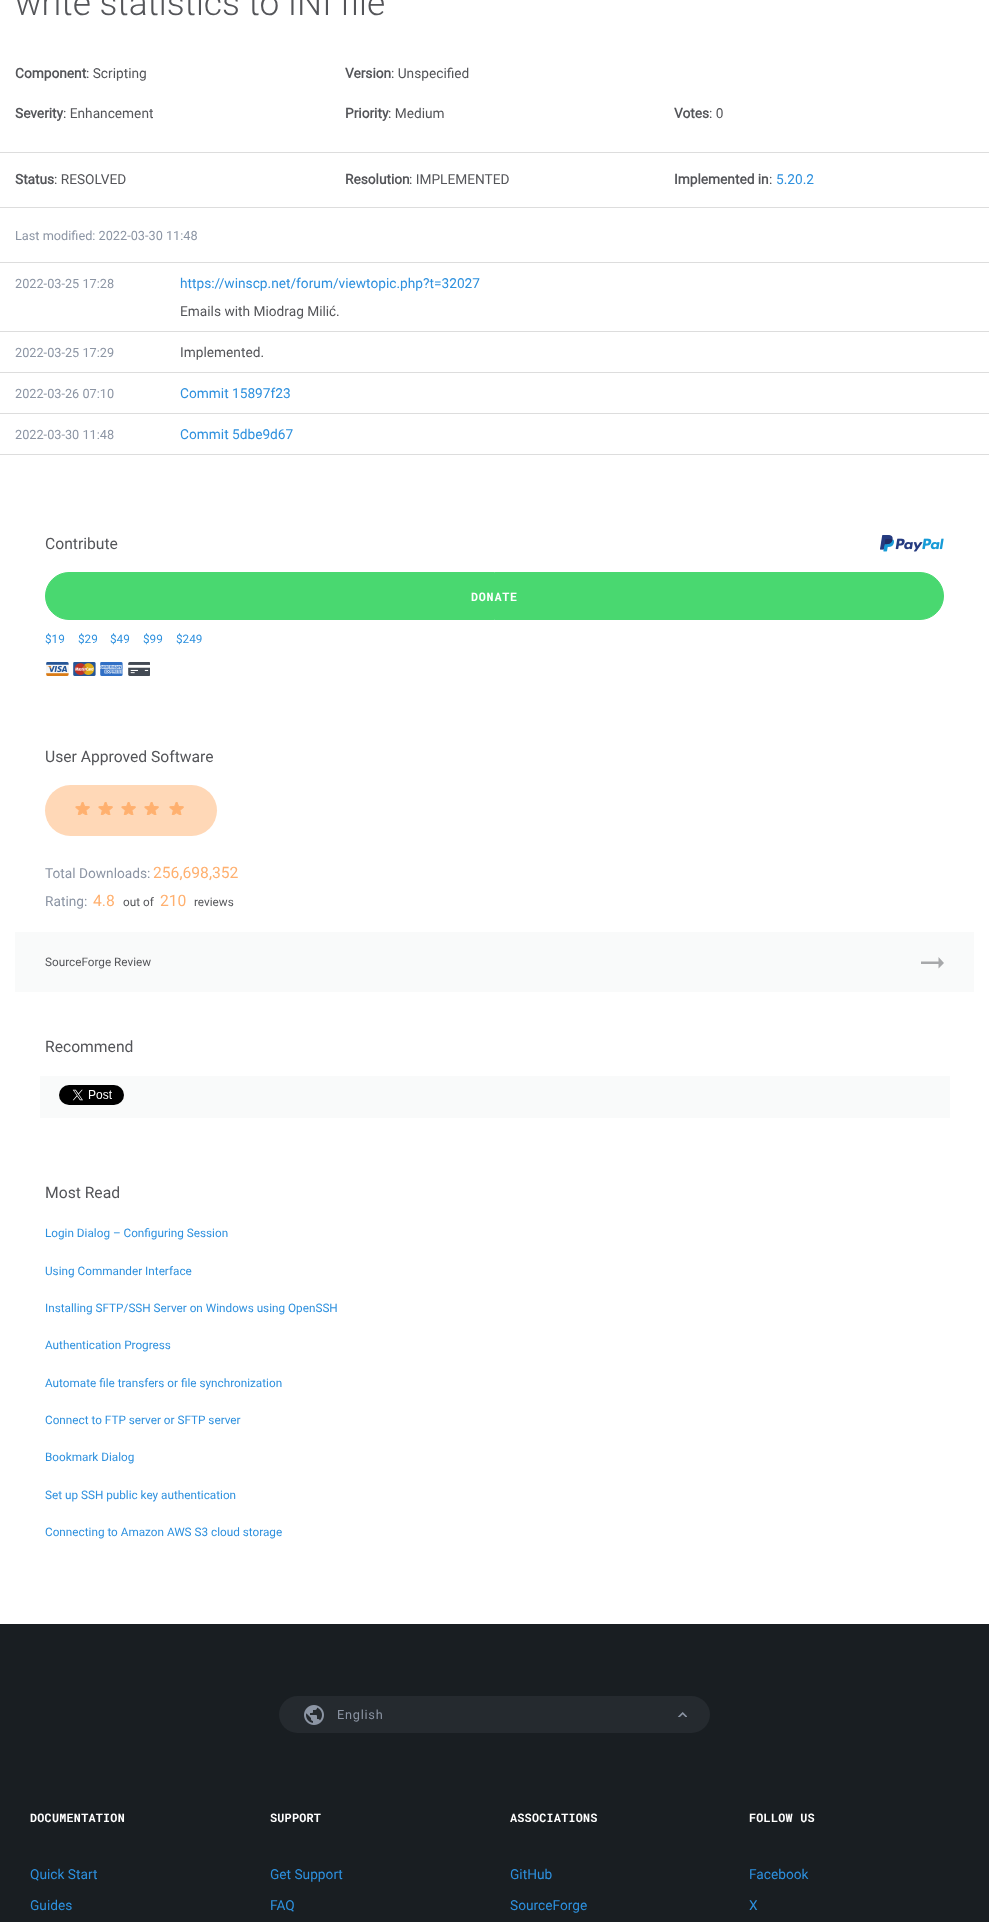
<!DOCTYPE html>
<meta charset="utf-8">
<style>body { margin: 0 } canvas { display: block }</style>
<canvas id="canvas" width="989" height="1922"></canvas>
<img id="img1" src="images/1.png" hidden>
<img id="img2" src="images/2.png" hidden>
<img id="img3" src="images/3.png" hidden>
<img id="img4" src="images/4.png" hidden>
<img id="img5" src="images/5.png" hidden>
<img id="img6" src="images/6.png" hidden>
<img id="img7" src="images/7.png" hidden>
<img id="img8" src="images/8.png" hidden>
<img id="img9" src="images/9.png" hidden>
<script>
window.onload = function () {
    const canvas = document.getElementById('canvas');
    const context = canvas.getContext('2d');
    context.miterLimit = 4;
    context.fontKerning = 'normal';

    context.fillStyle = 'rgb(255, 255, 255)';
    context.fillRect(0, 0, 989, 1922);
    context.fillStyle = 'rgb(221, 221, 221)';
    context.fillRect(0, 152, 989, 1);
    context.fillRect(0, 207, 989, 1);
    context.fillRect(0, 262, 989, 1);
    context.fillRect(0, 331, 989, 1);
    context.fillRect(0, 372, 989, 1);
    context.fillRect(0, 413, 989, 1);
    context.fillRect(0, 454, 989, 1);
    context.drawImage(document.getElementById('img1'), 880, 535, 64, 17);
    context.fillStyle = 'rgb(73, 216, 112)';
    context.beginPath();
    context.roundRect(45.5, 572.5, 898, 47, 23.5);
    context.fill();
    context.strokeStyle = 'rgb(73, 216, 112)';
    context.stroke();
    context.drawImage(document.getElementById('img2'), 46, 662, 23, 14);
    context.drawImage(document.getElementById('img3'), 73, 662, 23, 14);
    context.drawImage(document.getElementById('img4'), 100, 662, 23, 14);
    context.drawImage(document.getElementById('img5'), 128, 662, 22, 14);
    context.fillStyle = 'rgb(255, 216, 183)';
    context.beginPath();
    context.roundRect(45, 785, 172, 51, 25.5);
    context.fill();
    context.drawImage(document.getElementById('img6'), 75, 802, 109, 13);
    context.fillStyle = 'rgb(249, 250, 250)';
    context.fillRect(15, 932, 959, 60);
    context.fillStyle = 'rgb(167, 168, 170)';
    context.beginPath();
    context.moveTo(921, 961.5);
    context.lineTo(921, 964);
    context.lineTo(938.5, 964);
    context.lineTo(938.5, 968.5);
    context.lineTo(944, 963);
    context.lineTo(938.5, 957);
    context.lineTo(938.5, 961.5);
    context.closePath();
    context.fill('evenodd');
    context.fillStyle = 'rgb(249, 250, 250)';
    context.fillRect(40, 1076, 910, 42);
    context.drawImage(document.getElementById('img7'), 59, 1085, 65, 20);
    context.fillStyle = 'rgb(25, 30, 34)';
    context.fillRect(0, 1624, 989, 298);
    context.fillStyle = 'rgb(37, 42, 47)';
    context.beginPath();
    context.roundRect(279, 1696, 431, 37, 18.5);
    context.fill();
    context.drawImage(document.getElementById('img8'), 304, 1705, 20, 20);
    context.drawImage(document.getElementById('img9'), 677, 1712, 10, 5);
    context.font = '300 36px Roboto';
    context.fillStyle = 'rgb(84, 85, 89)';
    context.fillText('write statistics to INI file', 15, 15);
    context.font = 'bold 14px Roboto';
    context.fillText('Component', 15, 78);
    context.font = '14px Roboto';
    context.fillText(': Scripting', 86, 78);
    context.font = 'bold 14px Roboto';
    context.fillText('Version', 345, 78);
    context.font = '14px Roboto';
    context.fillText(': Unspecified', 391, 78);
    context.font = 'bold 14px Roboto';
    context.fillText('Severity', 15, 118);
    context.font = '14px Roboto';
    context.fillText(': Enhancement', 63, 118);
    context.font = 'bold 14px Roboto';
    context.fillText('Priority', 345, 118);
    context.font = '14px Roboto';
    context.fillText(': Medium', 388, 118);
    context.font = 'bold 14px Roboto';
    context.fillText('Votes', 674, 118);
    context.font = '14px Roboto';
    context.fillText(': 0', 709, 118);
    context.font = 'bold 14px Roboto';
    context.fillText('Status', 15, 184);
    context.font = '14px Roboto';
    context.fillText(': RESOLVED', 54, 184);
    context.font = 'bold 14px Roboto';
    context.fillText('Resolution', 345, 184);
    context.font = '14px Roboto';
    context.fillText(': IMPLEMENTED', 409, 184);
    context.font = 'bold 14px Roboto';
    context.fillText('Implemented in', 674, 184);
    context.font = '14px Roboto';
    context.fillText(':', 769, 184);
    context.fillStyle = 'rgb(45, 144, 222)';
    context.fillText('5.20.2', 776, 184);
    context.font = '13px Roboto';
    context.fillStyle = 'rgb(140, 149, 164)';
    context.fillText('Last modified: 2022-03-30 11:48', 15, 240);
    context.fillText('2022-03-25 17:28', 15, 288);
    context.font = '14px Roboto';
    context.fillStyle = 'rgb(45, 144, 222)';
    context.fillText('https://winscp.net/forum/viewtopic.php?t=32027', 180, 288);
    context.fillStyle = 'rgb(84, 85, 89)';
    context.fillText('Emails with Miodrag Mili', 180, 316);
    context.font = '14px Liberation Sans';
    context.fillText('ć', 329, 316);
    context.font = '14px Roboto';
    context.fillText('.', 336, 316);
    context.font = '13px Roboto';
    context.fillStyle = 'rgb(140, 149, 164)';
    context.fillText('2022-03-25 17:29', 15, 357);
    context.font = '14px Roboto';
    context.fillStyle = 'rgb(84, 85, 89)';
    context.fillText('Implemented.', 180, 357);
    context.font = '13px Roboto';
    context.fillStyle = 'rgb(140, 149, 164)';
    context.fillText('2022-03-26 07:10', 15, 398);
    context.font = '14px Roboto';
    context.fillStyle = 'rgb(45, 144, 222)';
    context.fillText('Commit 15897f23', 180, 398);
    context.font = '13px Roboto';
    context.fillStyle = 'rgb(140, 149, 164)';
    context.fillText('2022-03-30 11:48', 15, 439);
    context.font = '14px Roboto';
    context.fillStyle = 'rgb(45, 144, 222)';
    context.fillText('Commit 5dbe9d67', 180, 439);
    context.font = '16px Roboto';
    context.fillStyle = 'rgb(84, 85, 89)';
    context.fillText('Contribute', 45, 549);
    context.letterSpacing = '0.75px';
    context.font = 'bold 12px Roboto Mono';
    context.fillStyle = 'rgb(255, 255, 255)';
    context.fillText('DONATE', 471, 601);
    context.letterSpacing = '0px';
    context.font = '12px Roboto';
    context.fillStyle = 'rgb(45, 144, 222)';
    context.fillText('$19', 45, 643);
    context.fillText('$29', 78, 643);
    context.fillText('$49', 110, 643);
    context.fillText('$99', 143, 643);
    context.fillText('$249', 176, 643);
    context.font = '16px Roboto';
    context.fillStyle = 'rgb(84, 85, 89)';
    context.fillText('User Approved Software', 45, 762);
    context.font = '14px Roboto';
    context.fillStyle = 'rgb(140, 149, 164)';
    context.fillText('Total Downloads:', 45, 878);
    context.font = '16px Roboto';
    context.fillStyle = 'rgb(255, 176, 111)';
    context.fillText('256,698,352', 153, 878);
    context.font = '14px Roboto';
    context.fillStyle = 'rgb(140, 149, 164)';
    context.fillText('Rating:', 45, 906);
    context.font = '16px Roboto';
    context.fillStyle = 'rgb(255, 176, 111)';
    context.fillText('4.8', 93, 906);
    context.font = '12px Roboto';
    context.fillStyle = 'rgb(84, 85, 89)';
    context.fillText('out of', 123, 906);
    context.font = '16px Roboto';
    context.fillStyle = 'rgb(255, 176, 111)';
    context.fillText('210', 160, 906);
    context.font = '12px Roboto';
    context.fillStyle = 'rgb(84, 85, 89)';
    context.fillText('reviews', 194, 906);
    context.fillText('SourceForge Review', 45, 966);
    context.font = '16px Roboto';
    context.fillText('Recommend', 45, 1052);
    context.fillText('Most Read', 45, 1198);
    context.font = '12px Roboto';
    context.fillStyle = 'rgb(45, 144, 222)';
    context.fillText('Login Dialog – Configuring Session', 45, 1237);
    context.fillText('Using Commander Interface', 45, 1275);
    context.fillText('Installing SFTP/SSH Server on Windows using OpenSSH', 45, 1312);
    context.fillText('Authentication Progress', 45, 1349);
    context.fillText('Automate file transfers or file synchronization', 45, 1387);
    context.fillText('Connect to FTP server or SFTP server', 45, 1424);
    context.fillText('Bookmark Dialog', 45, 1461);
    context.fillText('Set up SSH public key authentication', 45, 1499);
    context.fillText('Connecting to Amazon AWS S3 cloud storage', 45, 1536);
    context.letterSpacing = '0.75px';
    context.font = '13px Roboto';
    context.fillStyle = 'rgb(140, 149, 164)';
    context.fillText('English', 337, 1719);
    context.letterSpacing = '0.25px';
    context.font = 'bold 12px Roboto Mono';
    context.fillStyle = 'rgb(255, 255, 255)';
    context.fillText('DOCUMENTATION', 30, 1822);
    context.letterSpacing = '0px';
    context.font = '14px Roboto';
    context.fillStyle = 'rgb(45, 144, 222)';
    context.fillText('Quick Start', 30, 1879);
    context.fillText('Guides', 30, 1910);
    context.letterSpacing = '0.25px';
    context.font = 'bold 12px Roboto Mono';
    context.fillStyle = 'rgb(255, 255, 255)';
    context.fillText('SUPPORT', 270, 1822);
    context.letterSpacing = '0px';
    context.font = '14px Roboto';
    context.fillStyle = 'rgb(45, 144, 222)';
    context.fillText('Get Support', 270, 1879);
    context.fillText('FAQ', 270, 1910);
    context.letterSpacing = '0.25px';
    context.font = 'bold 12px Roboto Mono';
    context.fillStyle = 'rgb(255, 255, 255)';
    context.fillText('ASSOCIATIONS', 510, 1822);
    context.letterSpacing = '0px';
    context.font = '14px Roboto';
    context.fillStyle = 'rgb(45, 144, 222)';
    context.fillText('GitHub', 510, 1879);
    context.fillText('SourceForge', 510, 1910);
    context.letterSpacing = '0.25px';
    context.font = 'bold 12px Roboto Mono';
    context.fillStyle = 'rgb(255, 255, 255)';
    context.fillText('FOLLOW US', 749, 1822);
    context.letterSpacing = '0px';
    context.font = '14px Roboto';
    context.fillStyle = 'rgb(45, 144, 222)';
    context.fillText('Facebook', 749, 1879);
    context.fillText('X', 749, 1910);
};
</script>
